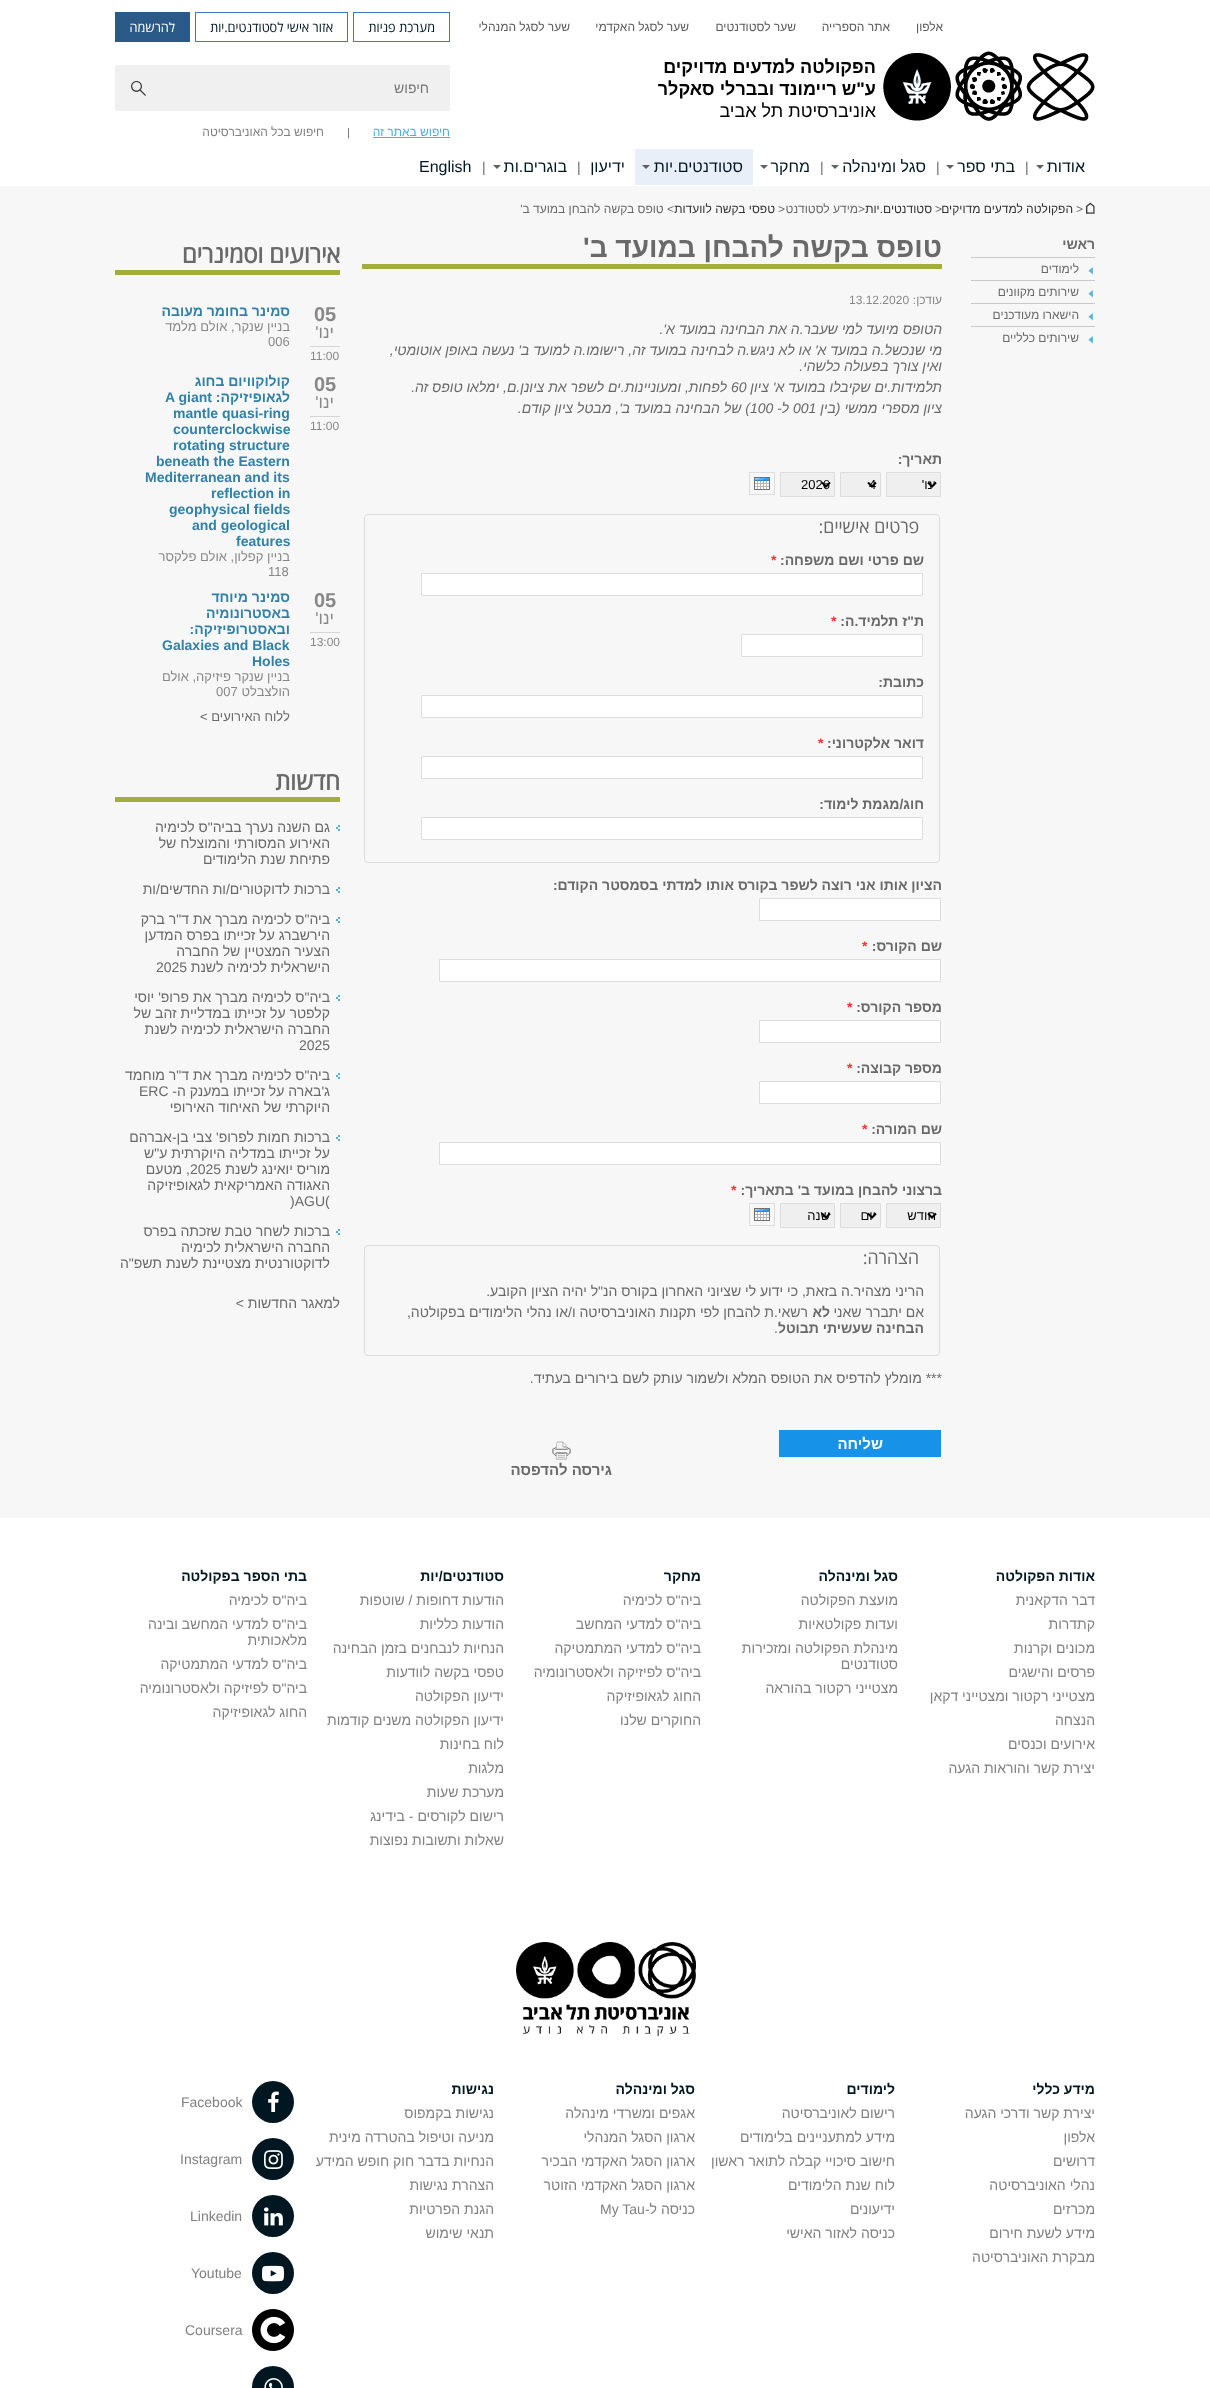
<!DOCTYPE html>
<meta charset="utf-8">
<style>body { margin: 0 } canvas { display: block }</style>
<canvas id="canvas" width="1210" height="2388"></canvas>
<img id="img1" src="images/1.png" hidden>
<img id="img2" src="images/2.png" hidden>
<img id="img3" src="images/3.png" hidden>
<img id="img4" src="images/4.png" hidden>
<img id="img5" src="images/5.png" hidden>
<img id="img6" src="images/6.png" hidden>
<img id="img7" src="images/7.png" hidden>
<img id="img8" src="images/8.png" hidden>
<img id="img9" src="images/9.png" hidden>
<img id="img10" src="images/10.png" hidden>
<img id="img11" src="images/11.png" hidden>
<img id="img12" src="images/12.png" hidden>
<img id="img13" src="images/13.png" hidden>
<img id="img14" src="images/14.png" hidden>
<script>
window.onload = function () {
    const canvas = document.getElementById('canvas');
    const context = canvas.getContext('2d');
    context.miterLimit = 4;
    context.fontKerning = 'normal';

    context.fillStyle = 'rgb(247, 247, 247)';
    context.fillRect(0, 0, 1210, 2388);
    context.fillStyle = 'rgb(255, 255, 255)';
    context.fillRect(0, 0, 1210, 186);
    context.strokeStyle = 'rgb(59, 123, 189)';
    context.strokeRect(353.5, 12.5, 96, 29);
    context.strokeRect(195.5, 12.5, 152, 29);
    context.fillStyle = 'rgb(43, 89, 136)';
    context.fillRect(115, 12, 75, 30);
    context.drawImage(document.getElementById('img1'), 883, 51, 212, 70);
    context.fillStyle = 'rgb(240, 240, 240)';
    context.fillRect(115, 65, 335, 46);
    context.drawImage(document.getElementById('img2'), 131, 80, 15, 16);
    context.fillStyle = 'rgb(69, 173, 230)';
    context.fillRect(373, 137, 77, 1);
    context.fillStyle = 'rgb(96, 96, 96)';
    context.beginPath();
    context.moveTo(1036, 165);
    context.lineTo(1044, 165);
    context.lineTo(1040, 169);
    context.closePath();
    context.fill();
    context.beginPath();
    context.moveTo(946, 165);
    context.lineTo(954, 165);
    context.lineTo(950, 169);
    context.closePath();
    context.fill();
    context.beginPath();
    context.moveTo(831, 165);
    context.lineTo(839, 165);
    context.lineTo(835, 169);
    context.closePath();
    context.fill();
    context.beginPath();
    context.moveTo(760, 165);
    context.lineTo(768, 165);
    context.lineTo(764, 169);
    context.closePath();
    context.fill();
    context.fillStyle = 'rgb(233, 239, 249)';
    context.fillRect(635, 149, 118, 36);
    context.fillStyle = 'rgb(96, 96, 96)';
    context.beginPath();
    context.moveTo(642, 165);
    context.lineTo(650, 165);
    context.lineTo(646, 169);
    context.closePath();
    context.fill();
    context.beginPath();
    context.moveTo(493, 165);
    context.lineTo(501, 165);
    context.lineTo(497, 169);
    context.closePath();
    context.fill();
    context.drawImage(document.getElementById('img3'), 1086, 202, 9, 12);
    context.fillStyle = 'rgb(202, 201, 201)';
    context.fillRect(971, 257, 124, 1);
    context.drawImage(document.getElementById('img4'), 1088, 266, 5, 9);
    context.fillRect(971, 280, 124, 1);
    context.drawImage(document.getElementById('img4'), 1088, 289, 5, 9);
    context.fillRect(971, 303, 124, 1);
    context.drawImage(document.getElementById('img4'), 1088, 312, 5, 9);
    context.fillRect(971, 326, 124, 1);
    context.drawImage(document.getElementById('img4'), 1088, 335, 5, 9);
    context.fillStyle = 'rgb(163, 173, 60)';
    context.fillRect(362, 264, 580, 5);
    context.strokeStyle = 'rgb(221, 221, 221)';
    context.strokeRect(749.5, 472.5, 25, 22);
    context.fillStyle = 'rgb(239, 239, 239)';
    context.beginPath();
    context.rect(886.5, 472.5, 54, 24);
    context.fill();
    context.stroke();
    context.beginPath();
    context.moveTo(928, 482.5);
    context.lineTo(932, 486.5);
    context.lineTo(936, 482.5);
    context.strokeStyle = 'rgb(0, 0, 0)';
    context.lineWidth = 2;
    context.stroke();
    context.beginPath();
    context.rect(840.5, 472.5, 40, 24);
    context.fill();
    context.strokeStyle = 'rgb(221, 221, 221)';
    context.lineWidth = 1;
    context.stroke();
    context.beginPath();
    context.moveTo(868, 482.5);
    context.lineTo(872, 486.5);
    context.lineTo(876, 482.5);
    context.strokeStyle = 'rgb(0, 0, 0)';
    context.lineWidth = 2;
    context.stroke();
    context.beginPath();
    context.rect(780.5, 472.5, 54, 24);
    context.fill();
    context.strokeStyle = 'rgb(221, 221, 221)';
    context.lineWidth = 1;
    context.stroke();
    context.beginPath();
    context.moveTo(822, 482.5);
    context.lineTo(826, 486.5);
    context.lineTo(830, 482.5);
    context.strokeStyle = 'rgb(0, 0, 0)';
    context.lineWidth = 2;
    context.stroke();
    context.drawImage(document.getElementById('img5'), 754, 477, 16, 13);
    context.beginPath();
    context.roundRect(364.5, 514.5, 575, 348, 3.5);
    context.strokeStyle = 'rgb(221, 221, 221)';
    context.lineWidth = 1;
    context.stroke();
    context.fillStyle = 'rgb(255, 255, 255)';
    context.beginPath();
    context.rect(421.5, 573.5, 501, 22);
    context.fill();
    context.stroke();
    context.beginPath();
    context.rect(741.5, 634.5, 181, 22);
    context.fill();
    context.stroke();
    context.beginPath();
    context.rect(421.5, 695.5, 501, 22);
    context.fill();
    context.stroke();
    context.beginPath();
    context.rect(421.5, 756.5, 501, 22);
    context.fill();
    context.stroke();
    context.beginPath();
    context.rect(421.5, 817.5, 501, 22);
    context.fill();
    context.stroke();
    context.beginPath();
    context.rect(759.5, 898.5, 181, 22);
    context.fill();
    context.stroke();
    context.beginPath();
    context.rect(439.5, 959.5, 501, 22);
    context.fill();
    context.stroke();
    context.beginPath();
    context.rect(759.5, 1020.5, 181, 22);
    context.fill();
    context.stroke();
    context.beginPath();
    context.rect(759.5, 1081.5, 181, 22);
    context.fill();
    context.stroke();
    context.beginPath();
    context.rect(439.5, 1142.5, 501, 22);
    context.fill();
    context.stroke();
    context.strokeRect(749.5, 1203.5, 25, 22);
    context.fillStyle = 'rgb(239, 239, 239)';
    context.beginPath();
    context.rect(886.5, 1203.5, 54, 24);
    context.fill();
    context.stroke();
    context.beginPath();
    context.moveTo(928, 1213.5);
    context.lineTo(932, 1217.5);
    context.lineTo(936, 1213.5);
    context.strokeStyle = 'rgb(0, 0, 0)';
    context.lineWidth = 2;
    context.stroke();
    context.beginPath();
    context.rect(840.5, 1203.5, 40, 24);
    context.fill();
    context.strokeStyle = 'rgb(221, 221, 221)';
    context.lineWidth = 1;
    context.stroke();
    context.beginPath();
    context.moveTo(868, 1213.5);
    context.lineTo(872, 1217.5);
    context.lineTo(876, 1213.5);
    context.strokeStyle = 'rgb(0, 0, 0)';
    context.lineWidth = 2;
    context.stroke();
    context.beginPath();
    context.rect(780.5, 1203.5, 54, 24);
    context.fill();
    context.strokeStyle = 'rgb(221, 221, 221)';
    context.lineWidth = 1;
    context.stroke();
    context.beginPath();
    context.moveTo(822, 1213.5);
    context.lineTo(826, 1217.5);
    context.lineTo(830, 1213.5);
    context.strokeStyle = 'rgb(0, 0, 0)';
    context.lineWidth = 2;
    context.stroke();
    context.drawImage(document.getElementById('img5'), 754, 1208, 16, 13);
    context.beginPath();
    context.roundRect(364.5, 1245.5, 575, 110, 3.5);
    context.strokeStyle = 'rgb(221, 221, 221)';
    context.lineWidth = 1;
    context.stroke();
    context.fillStyle = 'rgb(22, 146, 232)';
    context.fillRect(779, 1430, 162, 27);
    context.drawImage(document.getElementById('img6'), 552, 1441, 19, 19);
    context.fillStyle = 'rgb(163, 173, 60)';
    context.fillRect(115, 270, 225, 5);
    context.fillStyle = 'rgb(214, 214, 214)';
    context.fillRect(310, 346, 30, 1);
    context.fillRect(310, 416, 30, 1);
    context.fillRect(310, 632, 30, 1);
    context.fillStyle = 'rgb(163, 173, 60)';
    context.fillRect(115, 797, 225, 5);
    context.drawImage(document.getElementById('img7'), 336, 825, 4, 6);
    context.drawImage(document.getElementById('img7'), 336, 887, 4, 6);
    context.drawImage(document.getElementById('img7'), 336, 917, 4, 6);
    context.drawImage(document.getElementById('img7'), 336, 995, 4, 6);
    context.drawImage(document.getElementById('img7'), 336, 1073, 4, 6);
    context.drawImage(document.getElementById('img7'), 336, 1135, 4, 6);
    context.drawImage(document.getElementById('img7'), 336, 1229, 4, 6);
    context.fillStyle = 'rgb(255, 255, 255)';
    context.fillRect(0, 1518, 1210, 870);
    context.drawImage(document.getElementById('img8'), 516, 1942, 180, 94);
    context.fillStyle = 'rgb(0, 23, 33)';
    context.beginPath();
    context.arc(273, 2102, 21, 0, 2 * Math.PI);
    context.fill();
    context.drawImage(document.getElementById('img9'), 268, 2091, 11, 21);
    context.beginPath();
    context.arc(273, 2159, 21, 0, 2 * Math.PI);
    context.fill();
    context.drawImage(document.getElementById('img10'), 264, 2150, 19, 19);
    context.beginPath();
    context.arc(273, 2216, 21, 0, 2 * Math.PI);
    context.fill();
    context.drawImage(document.getElementById('img11'), 264, 2207, 19, 19);
    context.beginPath();
    context.arc(273, 2273, 21, 0, 2 * Math.PI);
    context.fill();
    context.drawImage(document.getElementById('img12'), 262, 2265, 22, 17);
    context.drawImage(document.getElementById('img13'), 252, 2309, 42, 42);
    context.beginPath();
    context.arc(273, 2387, 21, 0, 2 * Math.PI);
    context.fill();
    context.drawImage(document.getElementById('img14'), 264, 2378, 19, 10);
    context.direction = 'rtl';
    context.font = '12px Liberation Sans';
    context.fillStyle = 'rgb(89, 89, 89)';
    context.fillText('אלפון', 943, 31);
    context.fillText('אתר הספרייה', 890, 31);
    context.fillText('שער לסטודנטים', 796, 31);
    context.fillText('שער לסגל האקדמי', 689, 31);
    context.fillText('שער לסגל המנהלי', 570, 31);
    context.font = '13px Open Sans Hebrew';
    context.fillStyle = 'rgb(0, 23, 33)';
    context.fillText('מערכת פניות', 435, 32);
    context.fillText('אזור אישי לסטודנטים.יות', 333, 32);
    context.fillStyle = 'rgb(255, 255, 255)';
    context.fillText('להרשמה', 175, 32);
    context.font = 'bold 18px Liberation Sans';
    context.fillStyle = 'rgb(0, 0, 0)';
    context.fillText('הפקולטה למדעים מדויקים', 876, 73);
    context.fillText('ע"ש ריימונד ובברלי סאקלר', 876, 95);
    context.font = '18px Liberation Sans';
    context.fillText('אוניברסיטת תל אביב', 876, 117);
    context.font = '14px Liberation Sans';
    context.fillStyle = 'rgb(117, 117, 117)';
    context.fillText('חיפוש', 429, 93);
    context.font = '12px Liberation Sans';
    context.fillStyle = 'rgb(69, 173, 230)';
    context.fillText('חיפוש באתר זה', 450, 136);
    context.direction = 'ltr';
    context.font = 'italic 11px Liberation Sans';
    context.fillStyle = 'rgb(105, 105, 105)';
    context.fillText('|', 347, 136);
    context.direction = 'rtl';
    context.font = '12px Liberation Sans';
    context.fillStyle = 'rgb(128, 128, 128)';
    context.fillText('חיפוש בכל האוניברסיטה', 324, 136);
    context.font = '16px Liberation Sans';
    context.fillStyle = 'rgb(0, 23, 33)';
    context.fillText('אודות', 1085, 172);
    context.direction = 'ltr';
    context.font = '14px Liberation Sans';
    context.fillStyle = 'rgb(105, 105, 105)';
    context.fillText('|', 1025, 172);
    context.direction = 'rtl';
    context.font = '16px Liberation Sans';
    context.fillStyle = 'rgb(0, 23, 33)';
    context.fillText('בתי ספר', 1015, 172);
    context.direction = 'ltr';
    context.font = '14px Liberation Sans';
    context.fillStyle = 'rgb(105, 105, 105)';
    context.fillText('|', 936, 172);
    context.direction = 'rtl';
    context.font = '16px Liberation Sans';
    context.fillStyle = 'rgb(0, 23, 33)';
    context.fillText('סגל ומינהלה', 926, 172);
    context.direction = 'ltr';
    context.font = '14px Liberation Sans';
    context.fillStyle = 'rgb(105, 105, 105)';
    context.fillText('|', 820, 172);
    context.direction = 'rtl';
    context.font = '16px Liberation Sans';
    context.fillStyle = 'rgb(0, 23, 33)';
    context.fillText('מחקר', 810, 172);
    context.fillText('סטודנטים.יות', 743, 172);
    context.fillText('ידיעון', 625, 172);
    context.direction = 'ltr';
    context.font = '14px Liberation Sans';
    context.fillStyle = 'rgb(105, 105, 105)';
    context.fillText('|', 577, 172);
    context.direction = 'rtl';
    context.font = '16px Liberation Sans';
    context.fillStyle = 'rgb(0, 23, 33)';
    context.fillText('בוגרים.ות', 567, 172);
    context.direction = 'ltr';
    context.font = '14px Liberation Sans';
    context.fillStyle = 'rgb(105, 105, 105)';
    context.fillText('|', 482, 172);
    context.font = '16px Liberation Sans';
    context.fillStyle = 'rgb(0, 23, 33)';
    context.fillText('English', 419, 172);
    context.font = '12px Liberation Sans';
    context.fillStyle = 'rgb(105, 105, 105)';
    context.fillText('>', 1076, 213);
    context.direction = 'rtl';
    context.fillStyle = 'rgb(51, 51, 51)';
    context.fillText('הפקולטה למדעים מדויקים', 1073, 213);
    context.direction = 'ltr';
    context.fillStyle = 'rgb(105, 105, 105)';
    context.fillText('>', 935, 213);
    context.direction = 'rtl';
    context.fillStyle = 'rgb(51, 51, 51)';
    context.fillText('סטודנטים.יות', 932, 213);
    context.direction = 'ltr';
    context.fillStyle = 'rgb(105, 105, 105)';
    context.fillText('>', 858, 213);
    context.direction = 'rtl';
    context.fillText('מידע לסטודנט', 858, 213);
    context.direction = 'ltr';
    context.fillText('>', 778, 213);
    context.direction = 'rtl';
    context.fillStyle = 'rgb(51, 51, 51)';
    context.fillText('טפסי בקשה לוועדות', 775, 213);
    context.fillStyle = 'rgb(105, 105, 105)';
    context.fillText('> טופס בקשה להבחן במועד ב\'', 674, 213);
    context.font = 'bold 14px Liberation Sans';
    context.fillText('ראשי', 1095, 249);
    context.font = '12px Liberation Sans';
    context.fillText('לימודים', 1079, 273);
    context.fillText('שירותים מקוונים', 1079, 296);
    context.fillText('הישארו מעודכנים', 1079, 319);
    context.fillText('שירותים כלליים', 1079, 342);
    context.font = 'bold 28px Liberation Sans';
    context.fillText('טופס בקשה להבחן במועד ב\'', 942, 257);
    context.font = '12px Liberation Sans';
    context.fillStyle = 'rgb(136, 136, 136)';
    context.fillText('עודכן:', 942, 304);
    context.direction = 'ltr';
    context.fillText('13.12.2020', 849, 304);
    context.direction = 'rtl';
    context.font = 'italic 14px Liberation Sans';
    context.fillStyle = 'rgb(105, 105, 105)';
    context.fillText('הטופס מיועד למי שעבר.ה את הבחינה במועד א\'.', 942, 334);
    context.fillText('מי שנכשל.ה במועד א\' או לא ניגש.ה לבחינה במועד זה, רישומו.ה למועד ב\' נעשה באופן אוטומטי,', 942, 355);
    context.fillText('ואין צורך בפעולה כלשהי.', 942, 371);
    context.fillText('תלמידות.ים שקיבלו במועד א\' ציון', 942, 392);
    context.direction = 'ltr';
    context.fillText('60', 731, 392);
    context.direction = 'rtl';
    context.fillText('לפחות, ומעוניינות.ים לשפר את ציונן.ם, ימלאו טופס זה.', 727, 392);
    context.fillText('ציון מספרי ממשי (בין', 942, 413);
    context.direction = 'ltr';
    context.fillText('001', 793, 413);
    context.direction = 'rtl';
    context.fillText('ל-', 789, 413);
    context.fillText(') של הבחינה במועד ב\', מבטל ציון קודם.', 750, 413);
    context.direction = 'ltr';
    context.fillText('100', 750, 413);
    context.direction = 'rtl';
    context.font = 'bold 14px Liberation Sans';
    context.fillText('תאריך:', 942, 464);
    context.font = '13px Liberation Sans';
    context.fillStyle = 'rgb(0, 0, 0)';
    context.fillText('ינו\'', 936, 489);
    context.direction = 'ltr';
    context.fillText('4', 869, 489);
    context.fillText('2026', 801, 489);
    context.direction = 'rtl';
    context.font = '18px Open Sans Hebrew';
    context.fillStyle = 'rgb(105, 105, 105)';
    context.fillText('פרטים אישיים:', 919, 533);
    context.font = 'bold 14px Liberation Sans';
    context.fillText('שם פרטי ושם משפחה:', 924, 565);
    context.direction = 'ltr';
    context.fillStyle = 'rgb(255, 45, 46)';
    context.fillText('*', 771, 565);
    context.direction = 'rtl';
    context.fillStyle = 'rgb(105, 105, 105)';
    context.fillText('ת"ז תלמיד.ה:', 924, 626);
    context.direction = 'ltr';
    context.fillStyle = 'rgb(255, 45, 46)';
    context.fillText('*', 831, 626);
    context.direction = 'rtl';
    context.fillStyle = 'rgb(105, 105, 105)';
    context.fillText('כתובת:', 924, 687);
    context.fillText('דואר אלקטרוני:', 924, 748);
    context.direction = 'ltr';
    context.fillStyle = 'rgb(255, 45, 46)';
    context.fillText('*', 818, 748);
    context.direction = 'rtl';
    context.fillStyle = 'rgb(105, 105, 105)';
    context.fillText('חוג/מגמת לימוד:', 924, 809);
    context.fillText('הציון אותו אני רוצה לשפר בקורס אותו למדתי בסמסטר הקודם:', 942, 890);
    context.fillText('שם הקורס:', 942, 951);
    context.direction = 'ltr';
    context.fillStyle = 'rgb(255, 45, 46)';
    context.fillText('*', 862, 951);
    context.direction = 'rtl';
    context.fillStyle = 'rgb(105, 105, 105)';
    context.fillText('מספר הקורס:', 942, 1012);
    context.direction = 'ltr';
    context.fillStyle = 'rgb(255, 45, 46)';
    context.fillText('*', 847, 1012);
    context.direction = 'rtl';
    context.fillStyle = 'rgb(105, 105, 105)';
    context.fillText('מספר קבוצה:', 942, 1073);
    context.direction = 'ltr';
    context.fillStyle = 'rgb(255, 45, 46)';
    context.fillText('*', 847, 1073);
    context.direction = 'rtl';
    context.fillStyle = 'rgb(105, 105, 105)';
    context.fillText('שם המורה:', 942, 1134);
    context.direction = 'ltr';
    context.fillStyle = 'rgb(255, 45, 46)';
    context.fillText('*', 862, 1134);
    context.direction = 'rtl';
    context.fillStyle = 'rgb(105, 105, 105)';
    context.fillText('ברצוני להבחן במועד ב\' בתאריך:', 942, 1195);
    context.direction = 'ltr';
    context.fillStyle = 'rgb(255, 45, 46)';
    context.fillText('*', 731, 1195);
    context.direction = 'rtl';
    context.font = '13px Liberation Sans';
    context.fillStyle = 'rgb(0, 0, 0)';
    context.fillText('חודש', 936, 1220);
    context.fillText('יום', 876, 1220);
    context.fillText('שנה', 830, 1220);
    context.font = '18px Open Sans Hebrew';
    context.fillStyle = 'rgb(105, 105, 105)';
    context.fillText('הצהרה:', 919, 1264);
    context.font = '14px Liberation Sans';
    context.fillText('הריני מצהיר.ה בזאת, כי ידוע לי שציוני האחרון בקורס הנ"ל יהיה הציון הקובע.', 924, 1296);
    context.fillText('אם יתברר שאני', 924, 1317);
    context.font = 'bold 14px Liberation Sans';
    context.fillText('לא', 830, 1317);
    context.font = '14px Liberation Sans';
    context.fillText('רשאי.ת להבחן לפי תקנות האוניברסיטה ו/או נהלי הלימודים בפקולטה,', 808, 1317);
    context.font = 'bold 14px Liberation Sans';
    context.fillText('הבחינה שעשיתי תבוטל', 924, 1333);
    context.direction = 'ltr';
    context.font = '14px Liberation Sans';
    context.fillText('.', 774, 1333);
    context.direction = 'rtl';
    context.fillText('*** מומלץ להדפיס את הטופס המלא ולשמור עותק לשם בירורים בעתיד.', 942, 1383);
    context.font = 'bold 15px Liberation Sans';
    context.fillStyle = 'rgb(255, 255, 255)';
    context.fillText('שליחה', 883, 1449);
    context.fillStyle = 'rgb(105, 105, 105)';
    context.fillText('גירסה להדפסה', 612, 1475);
    context.font = 'bold 24px Open Sans Hebrew';
    context.fillText('אירועים וסמינרים', 340, 263);
    context.direction = 'ltr';
    context.font = 'bold 20px Liberation Sans';
    context.fillStyle = 'rgb(136, 136, 136)';
    context.fillText('05', 314, 321);
    context.direction = 'rtl';
    context.font = '17px Liberation Sans';
    context.fillText('ינו\'', 334, 338);
    context.direction = 'ltr';
    context.font = '12px Liberation Sans';
    context.fillText('11:00', 310, 360);
    context.direction = 'rtl';
    context.font = 'bold 14px Liberation Sans';
    context.fillStyle = 'rgb(49, 129, 166)';
    context.fillText('סמינר בחומר מעובה', 290, 316);
    context.font = '13px Liberation Sans';
    context.fillStyle = 'rgb(136, 136, 136)';
    context.fillText('בניין שנקר, אולם מלמד', 290, 331);
    context.direction = 'ltr';
    context.fillText('006', 268, 346);
    context.font = 'bold 20px Liberation Sans';
    context.fillText('05', 314, 391);
    context.direction = 'rtl';
    context.font = '17px Liberation Sans';
    context.fillText('ינו\'', 334, 408);
    context.direction = 'ltr';
    context.font = '12px Liberation Sans';
    context.fillText('11:00', 310, 430);
    context.direction = 'rtl';
    context.font = 'bold 14px Liberation Sans';
    context.fillStyle = 'rgb(49, 129, 166)';
    context.fillText('קולוקוויום בחוג', 290, 386);
    context.fillText('לגאופיזיקה:', 290, 402);
    context.direction = 'ltr';
    context.fillText('A giant', 165, 402);
    context.fillText('mantle quasi-ring', 173, 418);
    context.fillText('counterclockwise', 173, 434);
    context.fillText('rotating structure', 173, 450);
    context.fillText('beneath the Eastern', 156, 466);
    context.fillText('Mediterranean and its', 145, 482);
    context.fillText('reflection in', 211, 498);
    context.fillText('geophysical fields', 169, 514);
    context.fillText('and geological', 192, 530);
    context.fillText('features', 236, 546);
    context.direction = 'rtl';
    context.font = '13px Liberation Sans';
    context.fillStyle = 'rgb(136, 136, 136)';
    context.fillText('בניין קפלון, אולם פלקסר', 290, 561);
    context.direction = 'ltr';
    context.fillText('118', 268, 576);
    context.font = 'bold 20px Liberation Sans';
    context.fillText('05', 314, 607);
    context.direction = 'rtl';
    context.font = '17px Liberation Sans';
    context.fillText('ינו\'', 334, 624);
    context.direction = 'ltr';
    context.font = '12px Liberation Sans';
    context.fillText('13:00', 310, 646);
    context.direction = 'rtl';
    context.font = 'bold 14px Liberation Sans';
    context.fillStyle = 'rgb(49, 129, 166)';
    context.fillText('סמינר מיוחד', 290, 602);
    context.fillText('באסטרונומיה', 290, 618);
    context.fillText('ובאסטרופיזיקה:', 290, 634);
    context.direction = 'ltr';
    context.fillText('Galaxies and Black', 162, 650);
    context.fillText('Holes', 252, 666);
    context.direction = 'rtl';
    context.font = '13px Liberation Sans';
    context.fillStyle = 'rgb(136, 136, 136)';
    context.fillText('בניין שנקר פיזיקה, אולם', 290, 681);
    context.fillText('הולצבלט', 290, 696);
    context.direction = 'ltr';
    context.fillText('007', 216, 696);
    context.direction = 'rtl';
    context.fillStyle = 'rgb(105, 105, 105)';
    context.fillText('ללוח האירועים >', 290, 721);
    context.font = 'bold 24px Open Sans Hebrew';
    context.fillText('חדשות', 340, 790);
    context.font = '14px Liberation Sans';
    context.fillText('גם השנה נערך בביה"ס לכימיה', 330, 832);
    context.fillText('האירוע המסורתי והמוצלח של', 330, 848);
    context.fillText('פתיחת שנת הלימודים', 330, 864);
    context.fillText('ברכות לדוקטורים/ות החדשים/ות', 330, 894);
    context.fillText('ביה"ס לכימיה מברך את ד"ר ברק', 330, 924);
    context.fillText('הירשברג על זכייתו בפרס המדען', 330, 940);
    context.fillText('הצעיר המצטיין של החברה', 330, 956);
    context.fillText('הישראלית לכימיה לשנת', 330, 972);
    context.direction = 'ltr';
    context.fillText('2025', 156, 972);
    context.direction = 'rtl';
    context.fillText('ביה"ס לכימיה מברך את פרופ\' יוסי', 330, 1002);
    context.fillText('קלפטר על זכייתו במדליית זהב של', 330, 1018);
    context.fillText('החברה הישראלית לכימיה לשנת', 330, 1034);
    context.direction = 'ltr';
    context.fillText('2025', 299, 1050);
    context.direction = 'rtl';
    context.fillText('ביה"ס לכימיה מברך את ד"ר מוחמד', 330, 1080);
    context.fillText('ג\'בארה על זכייתו במענק ה-', 330, 1096);
    context.direction = 'ltr';
    context.fillText('ERC', 139, 1096);
    context.direction = 'rtl';
    context.fillText('היוקרתי של האיחוד האירופי', 330, 1112);
    context.fillText('ברכות חמות לפרופ\' צבי בן-אברהם', 330, 1142);
    context.fillText('על זכייתו במדליה היוקרתית ע"ש', 330, 1158);
    context.fillText('מוריס יואינג לשנת', 330, 1174);
    context.direction = 'ltr';
    context.fillText('2025', 190, 1174);
    context.direction = 'rtl';
    context.fillText(', מטעם', 190, 1174);
    context.fillText('האגודה האמריקאית לגאופיזיקה', 330, 1190);
    context.direction = 'ltr';
    context.fillText(')AGU(', 290, 1206);
    context.direction = 'rtl';
    context.fillText('ברכות לשחר טבת שזכתה בפרס', 330, 1236);
    context.fillText('החברה הישראלית לכימיה', 330, 1252);
    context.fillText('לדוקטורנטית מצטיינת לשנת תשפ"ה', 330, 1268);
    context.fillText('למאגר החדשות >', 340, 1308);
    context.font = 'bold 14px Liberation Sans';
    context.fillStyle = 'rgb(0, 23, 33)';
    context.fillText('אודות הפקולטה', 1095, 1581);
    context.font = '14px Liberation Sans';
    context.fillStyle = 'rgb(128, 128, 128)';
    context.fillText('דבר הדקאנית', 1095, 1605);
    context.fillText('קתדרות', 1095, 1629);
    context.fillText('מכונים וקרנות', 1095, 1653);
    context.fillText('פרסים והישגים', 1095, 1677);
    context.fillText('מצטייני רקטור ומצטייני דקאן', 1095, 1701);
    context.fillText('הנצחה', 1095, 1725);
    context.fillText('אירועים וכנסים', 1095, 1749);
    context.fillText('יצירת קשר והוראות הגעה', 1095, 1773);
    context.font = 'bold 14px Liberation Sans';
    context.fillStyle = 'rgb(0, 23, 33)';
    context.fillText('סגל ומינהלה', 898, 1581);
    context.font = '14px Liberation Sans';
    context.fillStyle = 'rgb(128, 128, 128)';
    context.fillText('מועצת הפקולטה', 898, 1605);
    context.fillText('ועדות פקולטאיות', 898, 1629);
    context.fillText('מינהלת הפקולטה ומזכירות', 898, 1653);
    context.fillText('סטודנטים', 898, 1669);
    context.fillText('מצטייני רקטור בהוראה', 898, 1693);
    context.font = 'bold 14px Liberation Sans';
    context.fillStyle = 'rgb(0, 23, 33)';
    context.fillText('מחקר', 701, 1581);
    context.font = '14px Liberation Sans';
    context.fillStyle = 'rgb(128, 128, 128)';
    context.fillText('ביה"ס לכימיה', 701, 1605);
    context.fillText('ביה"ס למדעי המחשב', 701, 1629);
    context.fillText('ביה"ס למדעי המתמטיקה', 701, 1653);
    context.fillText('ביה"ס לפיזיקה ולאסטרונומיה', 701, 1677);
    context.fillText('החוג לגאופיזיקה', 701, 1701);
    context.fillText('החוקרים שלנו', 701, 1725);
    context.font = 'bold 14px Liberation Sans';
    context.fillStyle = 'rgb(0, 23, 33)';
    context.fillText('סטודנטים/יות', 504, 1581);
    context.font = '14px Liberation Sans';
    context.fillStyle = 'rgb(128, 128, 128)';
    context.fillText('הודעות דחופות / שוטפות', 504, 1605);
    context.fillText('הודעות כלליות', 504, 1629);
    context.fillText('הנחיות לנבחנים בזמן הבחינה', 504, 1653);
    context.fillText('טפסי בקשה לוודעות', 504, 1677);
    context.fillText('ידיעון הפקולטה', 504, 1701);
    context.fillText('ידיעון הפקולטה משנים קודמות', 504, 1725);
    context.fillText('לוח בחינות', 504, 1749);
    context.fillText('מלגות', 504, 1773);
    context.fillText('מערכת שעות', 504, 1797);
    context.fillText('רישום לקורסים - בידינג', 504, 1821);
    context.fillText('שאלות ותשובות נפוצות', 504, 1845);
    context.font = 'bold 14px Liberation Sans';
    context.fillStyle = 'rgb(0, 23, 33)';
    context.fillText('בתי הספר בפקולטה', 307, 1581);
    context.font = '14px Liberation Sans';
    context.fillStyle = 'rgb(128, 128, 128)';
    context.fillText('ביה"ס לכימיה', 307, 1605);
    context.fillText('ביה"ס למדעי המחשב ובינה', 307, 1629);
    context.fillText('מלאכותית', 307, 1645);
    context.fillText('ביה"ס למדעי המתמטיקה', 307, 1669);
    context.fillText('ביה"ס לפיזיקה ולאסטרונומיה', 307, 1693);
    context.fillText('החוג לגאופיזיקה', 307, 1717);
    context.font = 'bold 14px Liberation Sans';
    context.fillStyle = 'rgb(0, 23, 33)';
    context.fillText('מידע כללי', 1095, 2094);
    context.font = '14px Liberation Sans';
    context.fillStyle = 'rgb(128, 128, 128)';
    context.fillText('יצירת קשר ודרכי הגעה', 1095, 2118);
    context.fillText('אלפון', 1095, 2142);
    context.fillText('דרושים', 1095, 2166);
    context.fillText('נהלי האוניברסיטה', 1095, 2190);
    context.fillText('מכרזים', 1095, 2214);
    context.fillText('מידע לשעת חירום', 1095, 2238);
    context.fillText('מבקרת האוניברסיטה', 1095, 2262);
    context.font = 'bold 14px Liberation Sans';
    context.fillStyle = 'rgb(0, 23, 33)';
    context.fillText('לימודים', 895, 2094);
    context.font = '14px Liberation Sans';
    context.fillStyle = 'rgb(128, 128, 128)';
    context.fillText('רישום לאוניברסיטה', 895, 2118);
    context.fillText('מידע למתעניינים בלימודים', 895, 2142);
    context.fillText('חישוב סיכויי קבלה לתואר ראשון', 895, 2166);
    context.fillText('לוח שנת הלימודים', 895, 2190);
    context.fillText('ידיעונים', 895, 2214);
    context.fillText('כניסה לאזור האישי', 895, 2238);
    context.font = 'bold 14px Liberation Sans';
    context.fillStyle = 'rgb(0, 23, 33)';
    context.fillText('סגל ומינהלה', 695, 2094);
    context.font = '14px Liberation Sans';
    context.fillStyle = 'rgb(128, 128, 128)';
    context.fillText('אגפים ומשרדי מינהלה', 695, 2118);
    context.fillText('ארגון הסגל המנהלי', 695, 2142);
    context.fillText('ארגון הסגל האקדמי הבכיר', 695, 2166);
    context.fillText('ארגון הסגל האקדמי הזוטר', 695, 2190);
    context.fillText('כניסה ל-', 695, 2214);
    context.direction = 'ltr';
    context.fillText('My Tau', 600, 2214);
    context.direction = 'rtl';
    context.font = 'bold 14px Liberation Sans';
    context.fillStyle = 'rgb(0, 23, 33)';
    context.fillText('נגישות', 494, 2094);
    context.font = '14px Liberation Sans';
    context.fillStyle = 'rgb(128, 128, 128)';
    context.fillText('נגישות בקמפוס', 494, 2118);
    context.fillText('מניעה וטיפול בהטרדה מינית', 494, 2142);
    context.fillText('הנחיות בדבר חוק חופש המידע', 494, 2166);
    context.fillText('הצהרת נגישות', 494, 2190);
    context.fillText('הגנת הפרטיות', 494, 2214);
    context.fillText('תנאי שימוש', 494, 2238);
    context.direction = 'ltr';
    context.fillText('Facebook', 181, 2107);
    context.fillText('Instagram', 180, 2164);
    context.fillText('Linkedin', 190, 2221);
    context.fillText('Youtube', 191, 2278);
    context.fillText('Coursera', 185, 2335);
};
</script>
